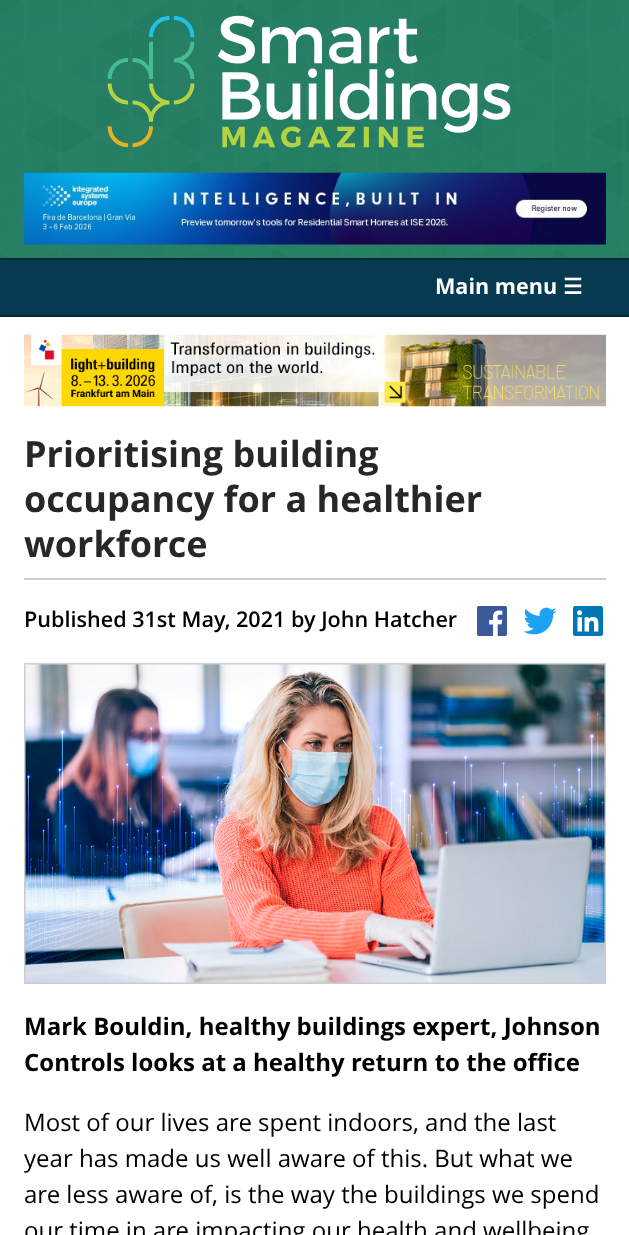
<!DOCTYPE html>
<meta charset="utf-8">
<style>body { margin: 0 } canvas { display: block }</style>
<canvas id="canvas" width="629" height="1235"></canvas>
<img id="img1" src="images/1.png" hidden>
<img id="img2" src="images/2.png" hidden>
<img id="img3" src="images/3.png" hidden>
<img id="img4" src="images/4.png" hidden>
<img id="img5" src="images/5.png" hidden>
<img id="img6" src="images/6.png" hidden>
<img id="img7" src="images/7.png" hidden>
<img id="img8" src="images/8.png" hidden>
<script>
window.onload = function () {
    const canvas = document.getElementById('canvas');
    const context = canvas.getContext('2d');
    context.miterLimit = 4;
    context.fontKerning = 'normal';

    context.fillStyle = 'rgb(255, 255, 255)';
    context.fillRect(0, 0, 629, 1235);
    context.fillStyle = 'rgb(4, 108, 78)';
    context.fillRect(0, 0, 629, 258);
    context.drawImage(document.getElementById('img1'), 0, 0, 629, 258);
    context.fillStyle = 'rgb(4, 38, 53)';
    context.fillRect(0, 258, 629, 2);
    context.drawImage(document.getElementById('img2'), 107, 15, 404, 133);
    context.drawImage(document.getElementById('img3'), 24, 172, 582, 73);
    context.fillStyle = 'rgb(5, 58, 80)';
    context.fillRect(0, 260, 629, 55);
    context.fillStyle = 'rgb(4, 38, 53)';
    context.fillRect(0, 315, 629, 2);
    context.drawImage(document.getElementById('img4'), 24, 334, 582, 73);
    context.fillStyle = 'rgb(205, 205, 207)';
    context.fillRect(24, 578, 582, 2);
    context.drawImage(document.getElementById('img5'), 477, 606, 30, 30);
    context.drawImage(document.getElementById('img6'), 523, 607, 34, 28);
    context.drawImage(document.getElementById('img7'), 573, 606, 30, 30);
    context.strokeStyle = 'rgb(205, 205, 207)';
    context.lineWidth = 2;
    context.strokeRect(25, 664, 580, 319);
    context.drawImage(document.getElementById('img8'), 25, 664, 580, 319);
    context.font = 'bold 21.6px Open Sans';
    context.fillStyle = 'rgb(255, 255, 255)';
    context.fillText('Main menu', 435, 294);
    context.font = 'bold 21.6px DejaVu Sans';
    context.fillText('☰', 563, 294);
    context.font = 'bold 36px Open Sans';
    context.fillStyle = 'rgb(39, 39, 40)';
    context.fillText('Prioritising building', 24, 467);
    context.fillText('occupancy for a healthier', 24, 512);
    context.fillText('workforce', 24, 557);
    context.font = '600 21.6px Open Sans';
    context.fillStyle = 'rgb(0, 0, 0)';
    context.fillText('Published 31st May, 2021 by John Hatcher', 24, 627);
    context.font = 'bold 24px Open Sans';
    context.fillText('Mark Bouldin, healthy buildings expert, Johnson', 24, 1035);
    context.fillText('Controls looks at a healthy return to the office', 24, 1071);
    context.font = '24px Open Sans';
    context.fillText('Most of our lives are spent indoors, and the last', 24, 1131);
    context.fillText('year has made us well aware of this. But what we', 24, 1167);
    context.fillText('are less aware of, is the way the buildings we spend', 24, 1203);
    context.fillText('our time in are impacting our health and wellbeing', 24, 1239);
};
</script>
